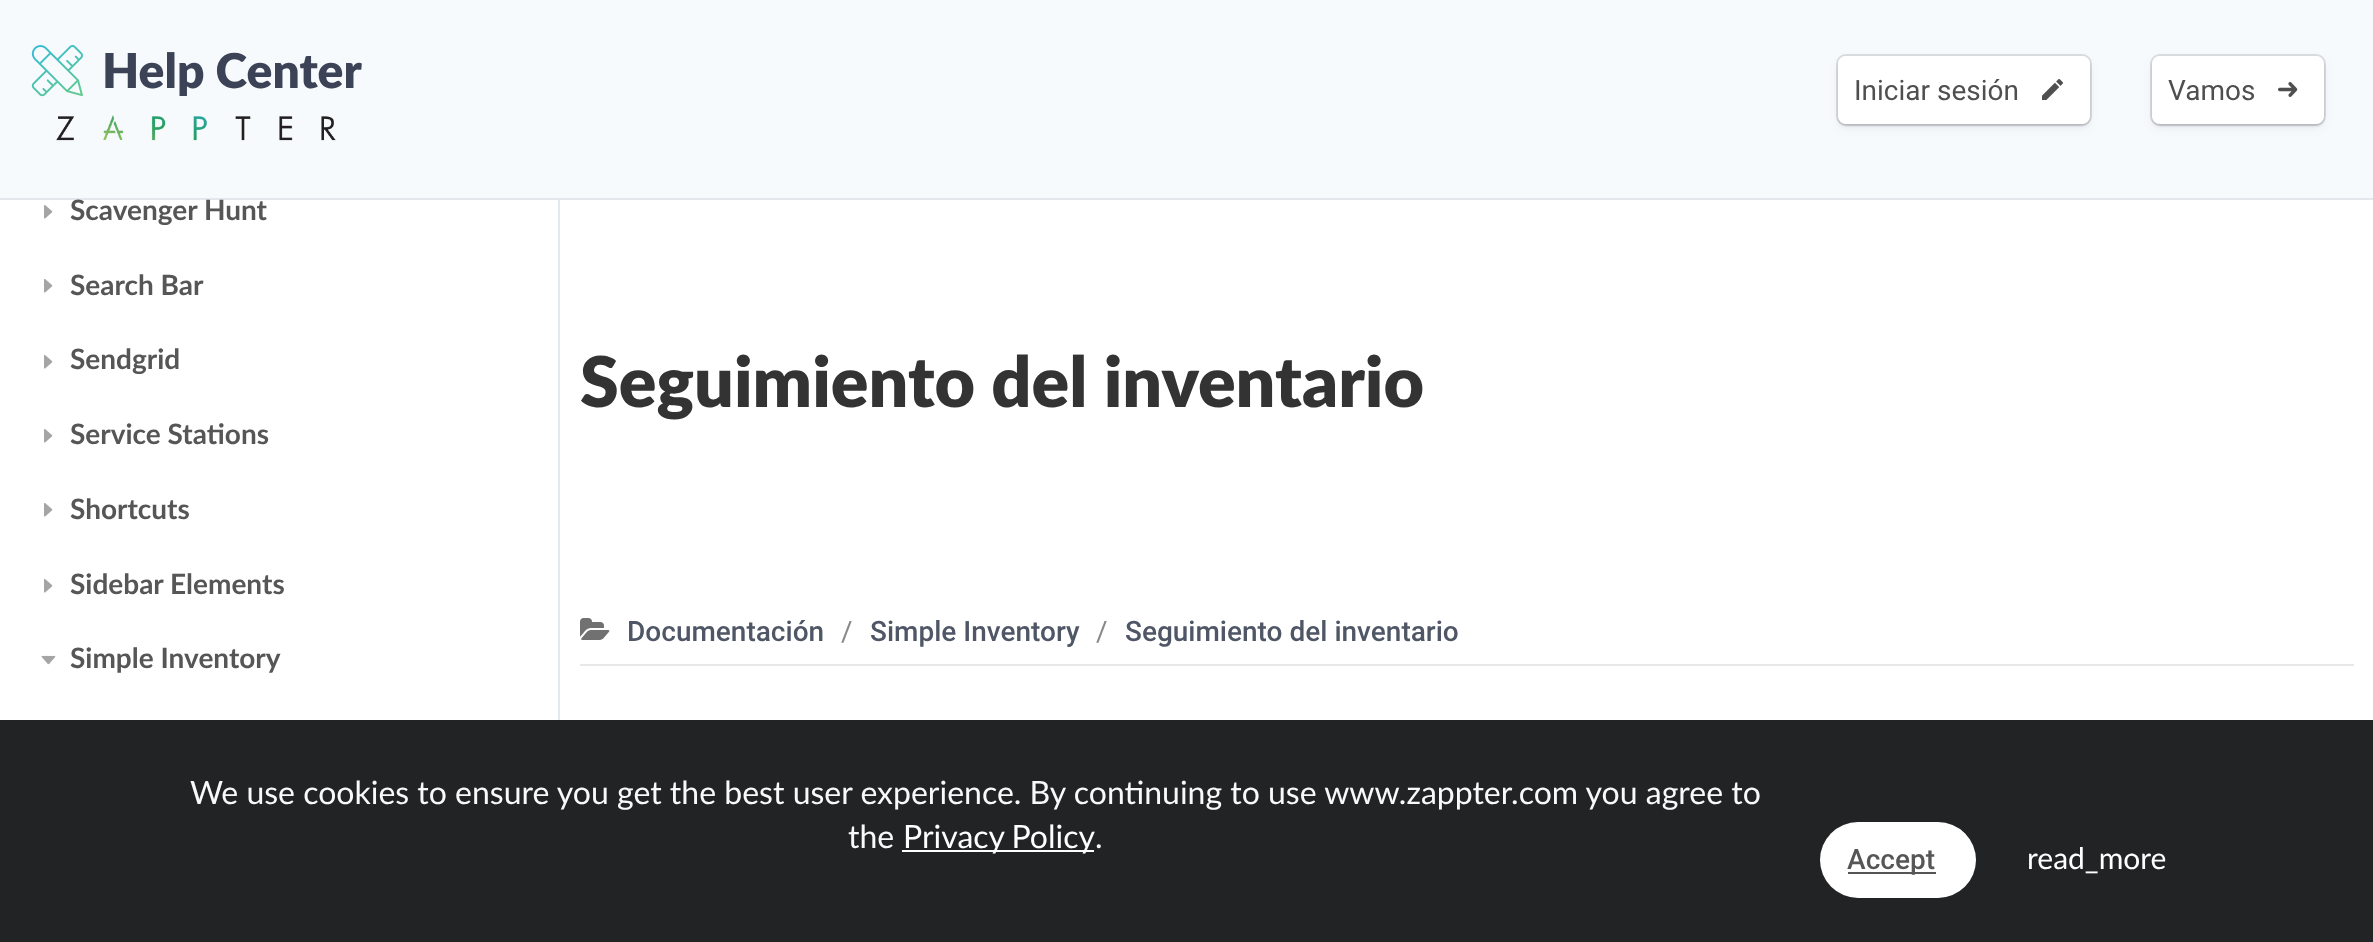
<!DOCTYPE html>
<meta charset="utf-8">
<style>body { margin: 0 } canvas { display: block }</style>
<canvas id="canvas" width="2373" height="942"></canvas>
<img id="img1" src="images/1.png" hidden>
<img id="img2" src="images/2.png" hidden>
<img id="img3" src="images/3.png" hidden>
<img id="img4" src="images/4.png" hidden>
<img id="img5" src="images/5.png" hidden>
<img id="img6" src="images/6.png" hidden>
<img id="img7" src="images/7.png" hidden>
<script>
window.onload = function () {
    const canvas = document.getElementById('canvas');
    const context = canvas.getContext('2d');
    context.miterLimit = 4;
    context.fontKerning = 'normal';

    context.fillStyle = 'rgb(255, 255, 255)';
    context.fillRect(0, 0, 2373, 942);
    context.fillStyle = 'rgb(247, 250, 252)';
    context.fillRect(0, 0, 2373, 198);
    context.fillStyle = 'rgb(227, 232, 238)';
    context.fillRect(0, 198, 2373, 2);
    context.drawImage(document.getElementById('img1'), 31, 45, 52, 52);
    context.drawImage(document.getElementById('img2'), 56, 115, 280, 26);
    context.fillStyle = 'rgba(60, 66, 87, 0.08)';
    context.filter = 'blur(5px)';
    context.beginPath();
    context.roundRect(1838, 60, 252, 68, 8);
    context.fill();
    context.filter = 'none';
    context.beginPath();
    context.roundRect(1837, 55, 254, 70, 9);
    context.strokeStyle = 'rgba(60, 66, 87, 0.16)';
    context.lineWidth = 2;
    context.stroke();
    context.fillStyle = 'rgba(0, 0, 0, 0.12)';
    context.filter = 'blur(1px)';
    context.beginPath();
    context.roundRect(1838, 58, 252, 68, 8);
    context.fill();
    context.filter = 'none';
    context.fillStyle = 'rgb(255, 255, 255)';
    context.beginPath();
    context.roundRect(1838, 56, 252, 68, 8);
    context.fill();
    context.drawImage(document.getElementById('img3'), 2042, 79, 21, 21);
    context.fillStyle = 'rgba(60, 66, 87, 0.08)';
    context.filter = 'blur(5px)';
    context.beginPath();
    context.roundRect(2152, 60, 172, 68, 8);
    context.fill();
    context.filter = 'none';
    context.beginPath();
    context.roundRect(2151, 55, 174, 70, 9);
    context.stroke();
    context.fillStyle = 'rgba(0, 0, 0, 0.12)';
    context.filter = 'blur(1px)';
    context.beginPath();
    context.roundRect(2152, 58, 172, 68, 8);
    context.fill();
    context.filter = 'none';
    context.fillStyle = 'rgb(255, 255, 255)';
    context.beginPath();
    context.roundRect(2152, 56, 172, 68, 8);
    context.fill();
    context.drawImage(document.getElementById('img4'), 2278, 82, 20, 15);
    context.fillStyle = 'rgb(227, 232, 238)';
    context.fillRect(558, 200, 2, 520);
    context.drawImage(document.getElementById('img5'), 44, 205, 9, 14);
    context.drawImage(document.getElementById('img5'), 44, 279, 9, 14);
    context.drawImage(document.getElementById('img5'), 44, 355, 9, 14);
    context.drawImage(document.getElementById('img5'), 44, 429, 9, 14);
    context.drawImage(document.getElementById('img5'), 44, 503, 9, 14);
    context.drawImage(document.getElementById('img5'), 44, 579, 9, 14);
    context.drawImage(document.getElementById('img6'), 41, 655, 15, 10);
    context.fillStyle = 'rgb(232, 232, 232)';
    context.fillRect(580, 664, 1774, 2);
    context.drawImage(document.getElementById('img7'), 580, 618, 30, 22);
    context.fillStyle = 'rgb(33, 35, 37)';
    context.fillRect(0, 720, 2373, 222);
    context.fillStyle = 'rgb(255, 255, 255)';
    context.fillRect(902, 850, 192, 2);
    context.beginPath();
    context.roundRect(1820, 822, 156, 76, 38);
    context.fill();
    context.fillStyle = 'rgb(85, 85, 85)';
    context.fillRect(1848, 872, 88, 2);
    context.font = '900 48px Lato';
    context.fillStyle = 'rgb(60, 67, 86)';
    context.fillText('Help Center', 102, 88);
    context.font = '28px Roboto';
    context.fillStyle = 'rgb(79, 79, 79)';
    context.fillText('Iniciar sesión', 1854, 100);
    context.fillText('Vamos', 2168, 100);
    context.font = 'bold 28px Lato';
    context.fillStyle = 'rgb(86, 86, 86)';
    context.fillText('Scavenger Hunt', 70, 220);
    context.fillText('Search Bar', 70, 295);
    context.fillText('Sendgrid', 70, 369);
    context.fillText('Service Stations', 70, 444);
    context.fillText('Shortcuts', 70, 519);
    context.fillText('Sidebar Elements', 70, 594);
    context.fillText('Simple Inventory', 70, 668);
    context.font = '900 70px Lato';
    context.fillStyle = 'rgb(51, 51, 51)';
    context.fillText('Seguimiento del inventario', 580, 407);
    context.font = '500 28px Roboto';
    context.fillStyle = 'rgb(79, 86, 102)';
    context.fillText('Documentación', 627, 641);
    context.font = '28px Roboto';
    context.fillStyle = 'rgb(136, 136, 136)';
    context.fillText('/', 841, 641);
    context.font = '500 28px Roboto';
    context.fillStyle = 'rgb(79, 86, 102)';
    context.fillText('Simple Inventory', 870, 641);
    context.font = '28px Roboto';
    context.fillStyle = 'rgb(136, 136, 136)';
    context.fillText('/', 1096, 641);
    context.font = '500 28px Roboto';
    context.fillStyle = 'rgb(79, 86, 102)';
    context.fillText('Seguimiento del inventario', 1125, 641);
    context.font = '32px Lato';
    context.fillStyle = 'rgb(249, 249, 249)';
    context.fillText('We use cookies to ensure you get the best user experience. By continuing to use www.zappter.com you agree to', 190, 804);
    context.fillText('the', 848, 848);
    context.wordSpacing = '-1px';
    context.fillStyle = 'rgb(255, 255, 255)';
    context.fillText('Privacy Policy', 903, 848);
    context.wordSpacing = '0px';
    context.fillStyle = 'rgb(249, 249, 249)';
    context.fillText('.', 1095, 848);
    context.font = '500 28px Roboto';
    context.fillStyle = 'rgb(86, 86, 86)';
    context.fillText('Accept', 1847, 869);
    context.font = '30px Lato';
    context.fillStyle = 'rgb(255, 255, 255)';
    context.fillText('read_more', 2027, 869);
};
</script>
